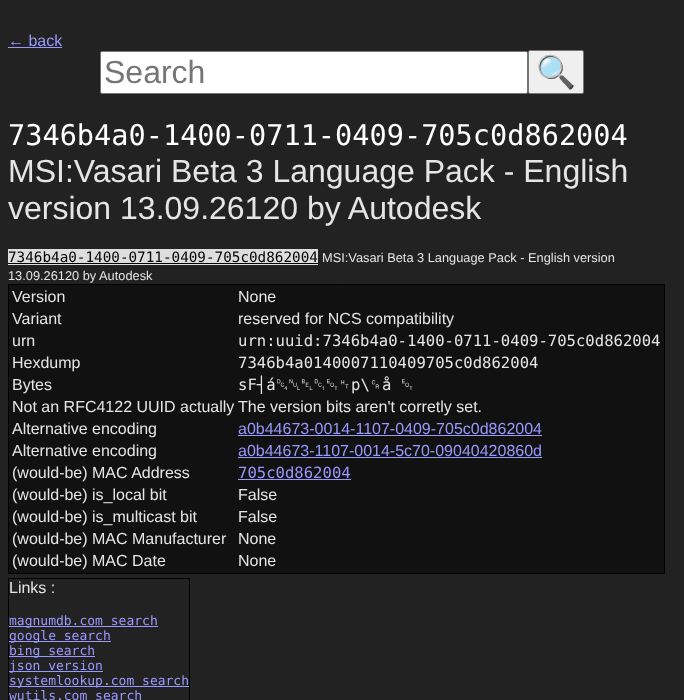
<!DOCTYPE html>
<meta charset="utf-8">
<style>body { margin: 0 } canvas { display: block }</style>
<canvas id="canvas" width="684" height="700"></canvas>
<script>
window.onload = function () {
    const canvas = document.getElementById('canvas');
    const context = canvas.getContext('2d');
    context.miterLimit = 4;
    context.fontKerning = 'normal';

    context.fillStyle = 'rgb(34, 34, 34)';
    context.fillRect(0, 0, 684, 700);
    context.fillStyle = 'rgb(153, 153, 255)';
    context.fillRect(8, 47, 54, 1);
    context.fillStyle = 'rgb(255, 255, 255)';
    context.beginPath();
    context.roundRect(100.5, 51.5, 427, 42, 1.5);
    context.fill();
    context.strokeStyle = 'rgb(118, 118, 118)';
    context.stroke();
    context.fillStyle = 'rgb(239, 239, 239)';
    context.beginPath();
    context.roundRect(528.5, 50.5, 55, 43, 1.5);
    context.fill();
    context.stroke();
    context.fillStyle = 'rgb(221, 221, 221)';
    context.fillRect(8, 249, 310, 16);
    context.fillStyle = 'rgb(0, 0, 0)';
    context.fillRect(8, 263, 310, 1);
    context.fillStyle = 'rgb(17, 17, 17)';
    context.beginPath();
    context.rect(8.5, 284.5, 656, 289);
    context.fill();
    context.strokeStyle = 'rgb(0, 0, 0)';
    context.stroke();
    context.fillStyle = 'rgb(153, 153, 255)';
    context.fillRect(238, 435, 304, 1);
    context.fillRect(238, 457, 304, 1);
    context.fillRect(238, 479, 113, 1);
    context.strokeRect(8.5, 578.5, 181, 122);
    context.fillRect(9, 626, 149, 1);
    context.fillRect(9, 641, 102, 1);
    context.fillRect(9, 656, 86, 1);
    context.fillRect(9, 671, 94, 1);
    context.fillRect(9, 686, 180, 1);
    context.font = '16px Liberation Sans';
    context.fillText('← back', 8, 46);
    context.font = '32px Liberation Sans';
    context.fillStyle = 'rgb(117, 117, 117)';
    context.fillText('Search', 104, 83);
    context.font = '32px Noto Color Emoji';
    context.fillStyle = 'rgb(0, 0, 0)';
    context.fillText('🔍', 536, 83);
    context.font = '28.6px DejaVu Sans Mono';
    context.fillStyle = 'rgb(255, 255, 255)';
    context.fillText('7346b4a0-1400-0711-0409-705c0d862004', 8, 145);
    context.font = '32px Liberation Sans';
    context.fillStyle = 'rgb(229, 229, 229)';
    context.fillText('MSI:Vasari Beta 3 Language Pack - English', 8, 182);
    context.fillText('version 13.09.26120 by Autodesk', 8, 219);
    context.font = '14.3px DejaVu Sans Mono';
    context.fillStyle = 'rgb(0, 0, 0)';
    context.fillText('7346b4a0-1400-0711-0409-705c0d862004', 8, 262);
    context.font = '12.8px Liberation Sans';
    context.fillStyle = 'rgb(229, 229, 229)';
    context.fillText('MSI:Vasari Beta 3 Language Pack - English version', 322, 262);
    context.fillText('13.09.26120 by Autodesk', 8, 280);
    context.font = '16px Liberation Sans';
    context.fillText('Version', 12, 302);
    context.fillText('None', 238, 302);
    context.fillText('Variant', 12, 324);
    context.fillText('reserved for NCS compatibility', 238, 324);
    context.fillText('urn', 12, 346);
    context.font = '15.6px DejaVu Sans Mono';
    context.fillText('urn:uuid:7346b4a0-1400-0711-0409-705c0d862004', 238, 346);
    context.font = '16px Liberation Sans';
    context.fillText('Hexdump', 12, 368);
    context.font = '15.6px DejaVu Sans Mono';
    context.fillText('7346b4a0140007110409705c0d862004', 238, 368);
    context.font = '16px Liberation Sans';
    context.fillText('Bytes', 12, 390);
    context.font = '15.6px DejaVu Sans Mono';
    context.fillText('sF┤á', 238, 390);
    context.font = '15.6px FreeSans';
    context.fillText('␔␀␇␑␄␉', 276, 390);
    context.font = '15.6px DejaVu Sans Mono';
    context.fillText('p\\', 351, 390);
    context.font = '15.6px FreeSans';
    context.fillText('␍', 369, 390);
    context.font = '15.6px DejaVu Sans Mono';
    context.fillText('å', 382, 390);
    context.font = '15.6px FreeSans';
    context.fillText('␄', 401, 390);
    context.font = '16px Liberation Sans';
    context.fillText('Not an RFC4122 UUID actually', 12, 412);
    context.fillText('The version bits aren\'t corretly set.', 238, 412);
    context.fillText('Alternative encoding', 12, 434);
    context.fillStyle = 'rgb(153, 153, 255)';
    context.fillText('a0b44673-0014-1107-0409-705c0d862004', 238, 434);
    context.fillStyle = 'rgb(229, 229, 229)';
    context.fillText('Alternative encoding', 12, 456);
    context.fillStyle = 'rgb(153, 153, 255)';
    context.fillText('a0b44673-1107-0014-5c70-09040420860d', 238, 456);
    context.fillStyle = 'rgb(229, 229, 229)';
    context.fillText('(would-be) MAC Address', 12, 478);
    context.font = '15.6px DejaVu Sans Mono';
    context.fillStyle = 'rgb(153, 153, 255)';
    context.fillText('705c0d862004', 238, 478);
    context.font = '16px Liberation Sans';
    context.fillStyle = 'rgb(229, 229, 229)';
    context.fillText('(would-be) is_local bit', 12, 500);
    context.fillText('False', 238, 500);
    context.fillText('(would-be) is_multicast bit', 12, 522);
    context.fillText('False', 238, 522);
    context.fillText('(would-be) MAC Manufacturer', 12, 544);
    context.fillText('None', 238, 544);
    context.fillText('(would-be) MAC Date', 12, 566);
    context.fillText('None', 238, 566);
    context.fillText('Links :', 9, 593);
    context.font = '13px DejaVu Sans Mono';
    context.fillStyle = 'rgb(153, 153, 255)';
    context.fillText('magnumdb.com search', 9, 625);
    context.fillText('google search', 9, 640);
    context.fillText('bing search', 9, 655);
    context.fillText('json version', 9, 670);
    context.fillText('systemlookup.com search', 9, 685);
    context.fillText('wutils.com search', 9, 700);
};
</script>
